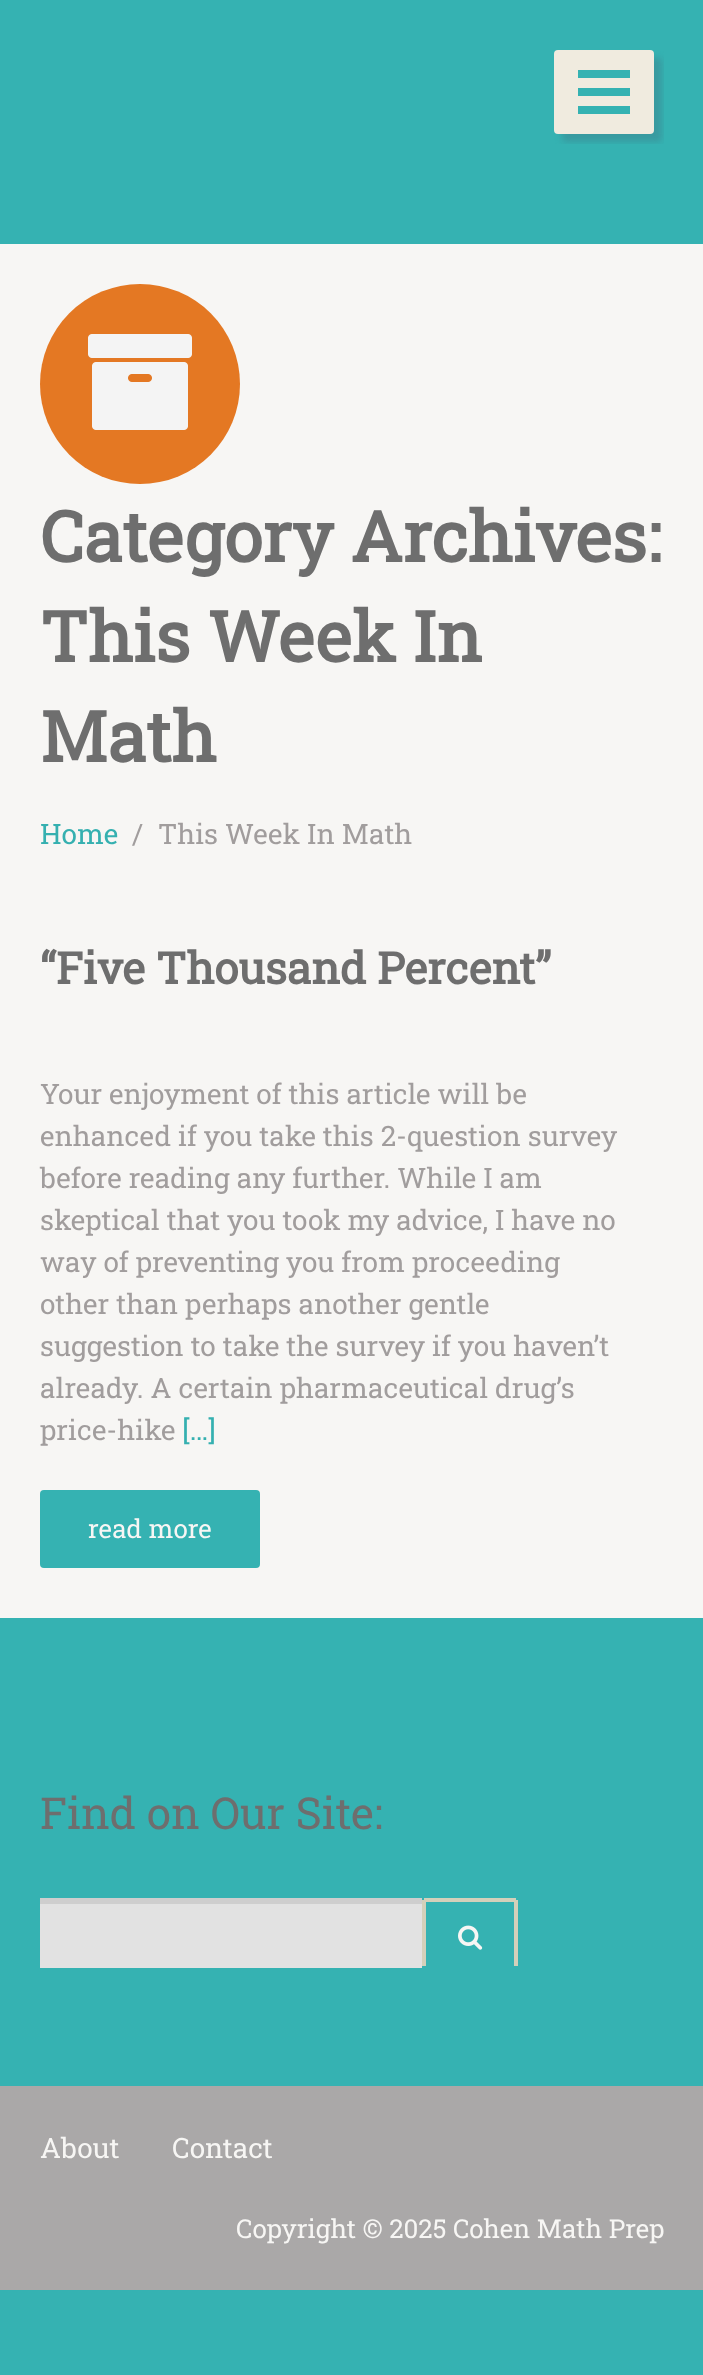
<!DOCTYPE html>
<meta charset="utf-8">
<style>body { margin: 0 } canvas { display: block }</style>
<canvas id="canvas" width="703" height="2375"></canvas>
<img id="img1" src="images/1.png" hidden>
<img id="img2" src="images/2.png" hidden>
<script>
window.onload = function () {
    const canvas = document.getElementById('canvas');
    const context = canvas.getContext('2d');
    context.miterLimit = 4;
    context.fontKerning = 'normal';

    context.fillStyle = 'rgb(53, 178, 178)';
    context.fillRect(0, 0, 703, 2375);
    context.save();
    context.beginPath();
    context.rect(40, 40, 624, 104);
    context.clip();
    context.fillStyle = 'rgb(56, 154, 160)';
    context.filter = 'blur(3px)';
    context.beginPath();
    context.roundRect(562, 58, 100, 84, 4);
    context.fill();
    context.filter = 'none';
    context.restore();
    context.fillStyle = 'rgb(240, 235, 223)';
    context.beginPath();
    context.roundRect(554, 50, 100, 84, 4);
    context.fill();
    context.fillStyle = 'rgb(53, 178, 178)';
    context.fillRect(578, 70, 52, 8);
    context.fillRect(578, 88, 52, 8);
    context.fillRect(578, 106, 52, 8);
    context.fillStyle = 'rgb(247, 246, 244)';
    context.fillRect(0, 244, 703, 1374);
    context.fillStyle = 'rgb(228, 120, 35)';
    context.beginPath();
    context.arc(140, 384, 100, 0, 2 * Math.PI);
    context.fill();
    context.drawImage(document.getElementById('img1'), 88, 334, 104, 96);
    context.fillStyle = 'rgb(53, 178, 178)';
    context.beginPath();
    context.roundRect(40, 1490, 220, 78, 4);
    context.fill();
    context.fillStyle = 'rgb(226, 226, 226)';
    context.fillRect(40, 1904, 382, 64);
    context.fillStyle = 'rgb(206, 206, 206)';
    context.fillRect(40, 1898, 382, 6);
    context.fillStyle = 'rgb(212, 208, 186)';
    context.fillRect(424, 1898, 92, 4);
    context.fillRect(514, 1900, 4, 66);
    context.fillRect(422, 1900, 4, 66);
    context.drawImage(document.getElementById('img2'), 458, 1925, 25, 25);
    context.fillStyle = 'rgb(170, 168, 168)';
    context.fillRect(0, 2086, 703, 204);
    context.font = 'bold 70px Roboto Slab';
    context.fillStyle = 'rgb(110, 110, 110)';
    context.fillText('Category Archives:', 40, 562);
    context.fillText('This Week In', 40, 662);
    context.fillText('Math', 40, 762);
    context.font = '28px Roboto Slab';
    context.fillStyle = 'rgb(53, 176, 176)';
    context.fillText('Home', 40, 844);
    context.fillStyle = 'rgb(161, 157, 157)';
    context.fillText('/', 132, 844);
    context.fillText('This Week In Math', 158, 844);
    context.font = 'bold 44px Roboto Slab';
    context.fillStyle = 'rgb(110, 110, 110)';
    context.fillText('“Five Thousand Percent”', 40, 984);
    context.font = '28px Roboto Slab';
    context.fillStyle = 'rgb(161, 157, 157)';
    context.fillText('Your enjoyment of this article will be', 40, 1104);
    context.fillText('enhanced if you take this 2-question survey', 40, 1146);
    context.fillText('before reading any further. While I am', 40, 1188);
    context.fillText('skeptical that you took my advice, I have no', 40, 1230);
    context.fillText('way of preventing you from proceeding', 40, 1272);
    context.fillText('other than perhaps another gentle', 40, 1314);
    context.fillText('suggestion to take the survey if you haven’t', 40, 1356);
    context.fillText('already. A certain pharmaceutical drug’s', 40, 1398);
    context.fillText('price-hike', 40, 1440);
    context.fillStyle = 'rgb(53, 176, 176)';
    context.fillText('[…]', 182, 1440);
    context.font = '26px Roboto Slab';
    context.fillStyle = 'rgb(247, 246, 244)';
    context.fillText('read more', 88, 1538);
    context.font = '44px Roboto Slab';
    context.fillStyle = 'rgb(110, 110, 110)';
    context.fillText('Find on Our Site:', 40, 1829);
    context.font = '28px Roboto Slab';
    context.fillStyle = 'rgb(247, 246, 244)';
    context.fillText('About', 40, 2158);
    context.fillText('Contact', 172, 2158);
    context.font = '26px Roboto Slab';
    context.fillText('Copyright © 2025 Cohen Math Prep', 236, 2238);
};
</script>
